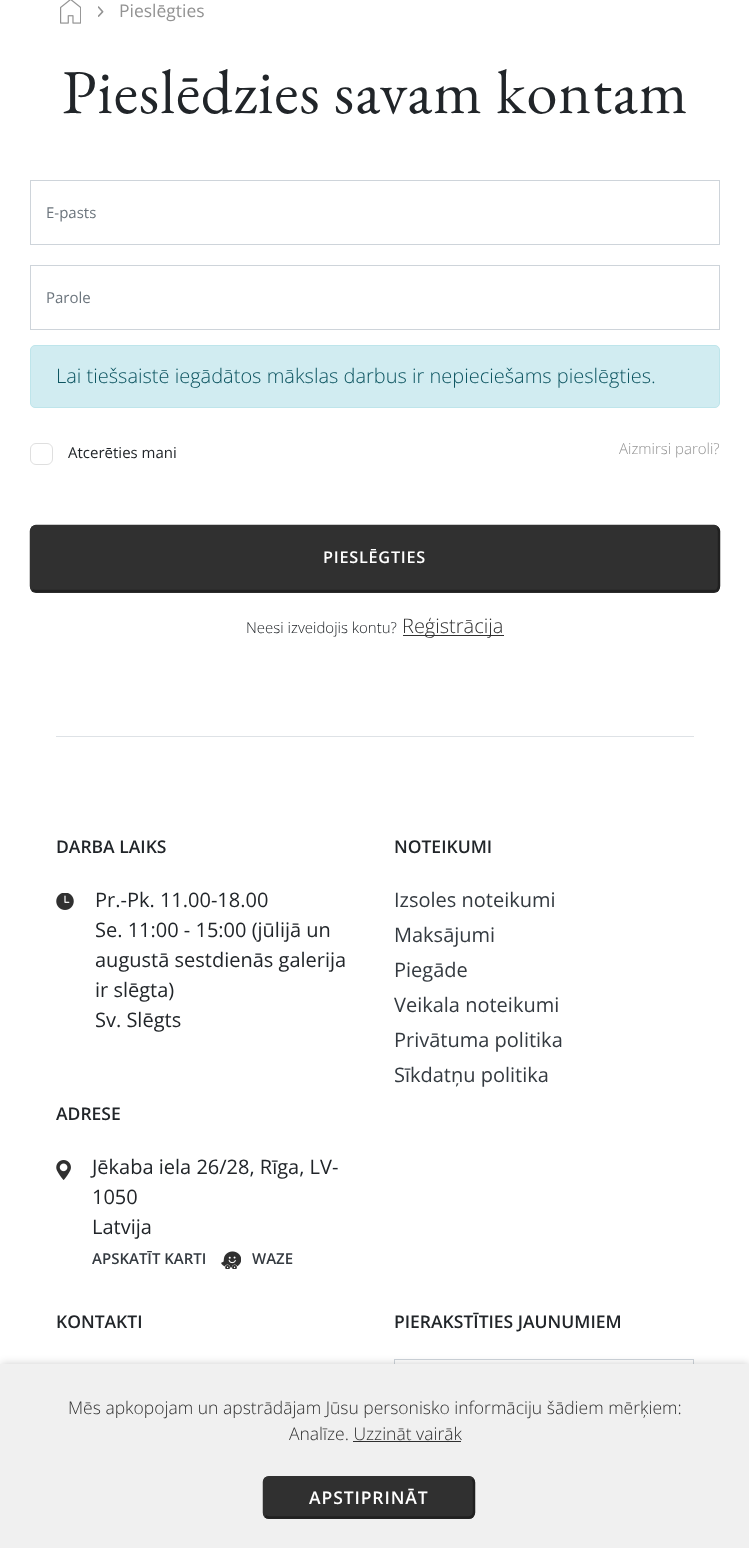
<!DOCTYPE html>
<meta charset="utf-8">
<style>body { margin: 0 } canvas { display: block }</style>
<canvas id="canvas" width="749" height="1548"></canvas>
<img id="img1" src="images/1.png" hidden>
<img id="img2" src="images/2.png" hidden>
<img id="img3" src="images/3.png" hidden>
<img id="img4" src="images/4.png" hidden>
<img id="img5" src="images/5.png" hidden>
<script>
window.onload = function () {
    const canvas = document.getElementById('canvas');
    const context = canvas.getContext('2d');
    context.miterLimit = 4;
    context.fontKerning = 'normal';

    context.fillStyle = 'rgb(255, 255, 255)';
    context.fillRect(0, 0, 749, 1548);
    context.drawImage(document.getElementById('img1'), 60, 0, 21, 24);
    context.drawImage(document.getElementById('img2'), 98, 6, 6, 11);
    context.strokeStyle = 'rgb(206, 212, 218)';
    context.strokeRect(30.5, 180.5, 689, 64);
    context.strokeRect(30.5, 265.5, 689, 64);
    context.fillStyle = 'rgb(209, 236, 241)';
    context.beginPath();
    context.roundRect(30.5, 345.5, 689, 62, 4.5);
    context.fill();
    context.strokeStyle = 'rgb(190, 229, 235)';
    context.stroke();
    context.beginPath();
    context.roundRect(30.5, 443.5, 22, 21, 5.5);
    context.strokeStyle = 'rgb(223, 223, 223)';
    context.stroke();
    context.fillStyle = 'rgb(48, 48, 48)';
    context.beginPath();
    context.roundRect(30, 525, 690, 68, 6);
    context.fill();
    context.beginPath();
    context.moveTo(717.5, 527.5);
    context.bezierCurveTo(718, 528.5, 719, 530, 719, 531);
    context.lineTo(719, 586);
    context.bezierCurveTo(719, 587.5, 718, 589, 717.5, 590);
    context.bezierCurveTo(716.5, 590.5, 715, 591, 714, 591);
    context.lineTo(36, 591);
    context.bezierCurveTo(35, 591, 33.5, 590.5, 32.5, 590);
    context.strokeStyle = 'rgb(32, 32, 32)';
    context.lineWidth = 2.5;
    context.stroke();
    context.beginPath();
    context.moveTo(32.5, 590);
    context.bezierCurveTo(32, 589, 31, 587.5, 31, 586);
    context.lineTo(31, 531);
    context.bezierCurveTo(31, 530, 32, 528.5, 32.5, 527.5);
    context.bezierCurveTo(33.5, 527, 35, 526, 36, 526);
    context.lineTo(714, 526);
    context.bezierCurveTo(715, 526, 716.5, 527, 717.5, 527.5);
    context.strokeStyle = 'rgb(48, 48, 48)';
    context.stroke();
    context.fillRect(403, 635, 101, 1);
    context.fillStyle = 'rgb(222, 226, 230)';
    context.fillRect(56, 736, 638, 1);
    context.drawImage(document.getElementById('img3'), 56, 893, 18, 17);
    context.drawImage(document.getElementById('img4'), 56, 1160, 15, 20);
    context.drawImage(document.getElementById('img5'), 221, 1251, 20, 18);
    context.strokeStyle = 'rgb(206, 212, 218)';
    context.lineWidth = 1;
    context.strokeRect(394.5, 1359.5, 299, 51);
    context.fillStyle = 'rgba(0, 0, 0, 0.2)';
    context.filter = 'blur(4.5px)';
    context.beginPath();
    context.rect(1, 1364, 748, 182);
    context.fill();
    context.filter = 'none';
    context.fillStyle = 'rgb(240, 240, 240)';
    context.fillRect(0, 1364, 749, 184);
    context.fillStyle = 'rgb(48, 48, 48)';
    context.fillRect(353, 1441, 108, 1);
    context.beginPath();
    context.roundRect(263, 1476, 212, 43, 6);
    context.fill();
    context.beginPath();
    context.moveTo(472.5, 1479);
    context.bezierCurveTo(473, 1480, 474, 1481, 474, 1482.5);
    context.lineTo(474, 1512.5);
    context.bezierCurveTo(474, 1514, 473, 1515, 472.5, 1516);
    context.bezierCurveTo(471.5, 1517, 470, 1517.5, 469, 1517.5);
    context.lineTo(269, 1517.5);
    context.bezierCurveTo(267.5, 1517.5, 266, 1517, 265, 1516);
    context.strokeStyle = 'rgb(32, 32, 32)';
    context.lineWidth = 2.5;
    context.stroke();
    context.beginPath();
    context.moveTo(265, 1516);
    context.bezierCurveTo(264.5, 1515, 264, 1514, 264, 1512.5);
    context.lineTo(264, 1482.5);
    context.bezierCurveTo(264, 1481, 264.5, 1480, 265, 1479);
    context.bezierCurveTo(266, 1478, 267.5, 1477.5, 269, 1477.5);
    context.lineTo(469, 1477.5);
    context.bezierCurveTo(470, 1477.5, 471.5, 1478, 472.5, 1479);
    context.strokeStyle = 'rgb(48, 48, 48)';
    context.stroke();
    context.font = '17.5px Open Sans';
    context.fillStyle = 'rgb(147, 147, 147)';
    context.fillText('Pieslēgties', 119, 17);
    context.letterSpacing = '0.95px';
    context.font = '62.5px EB Garamond';
    context.fillStyle = 'rgb(33, 37, 41)';
    context.fillText('Pieslēdzies savam kontam', 62, 113);
    context.letterSpacing = '0px';
    context.font = '15px Open Sans';
    context.fillStyle = 'rgb(108, 117, 125)';
    context.fillText('E-pasts', 46, 218);
    context.fillText('Parole', 46, 303);
    context.font = '300 20px Open Sans';
    context.fillStyle = 'rgb(12, 84, 96)';
    context.fillText('Lai tiešsaistē iegādātos mākslas darbus ir nepieciešams pieslēgties.', 56, 383);
    context.font = '15px Open Sans';
    context.fillStyle = 'rgb(33, 37, 41)';
    context.fillText('Atcerēties mani', 68, 458);
    context.font = '300 15px Open Sans';
    context.fillStyle = 'rgb(147, 147, 147)';
    context.fillText('Aizmirsi paroli?', 619, 454);
    context.letterSpacing = '0.75px';
    context.font = '600 16.25px Open Sans';
    context.fillStyle = 'rgb(255, 255, 255)';
    context.fillText('PIESLĒGTIES', 323, 563);
    context.letterSpacing = '0px';
    context.font = '300 15px Open Sans';
    context.fillStyle = 'rgb(33, 37, 41)';
    context.fillText('Neesi izveidojis kontu?', 246, 633);
    context.font = '300 20px Open Sans';
    context.fillStyle = 'rgb(48, 48, 48)';
    context.fillText('Reģistrācija', 402, 633);
    context.font = '600 17.5px Open Sans';
    context.fillStyle = 'rgb(33, 37, 41)';
    context.fillText('DARBA LAIKS', 56, 853);
    context.font = '20px Open Sans';
    context.fillText('Pr.-Pk. 11.00-18.00', 95, 907);
    context.fillText('Se. 11:00 - 15:00 (jūlijā un', 95, 937);
    context.fillText('augustā sestdienās galerija', 95, 967);
    context.fillText('ir slēgta)', 95, 997);
    context.fillText('Sv. Slēgts', 95, 1027);
    context.font = '600 17.5px Open Sans';
    context.fillText('ADRESE', 56, 1120);
    context.font = '20px Open Sans';
    context.fillText('Jēkaba iela 26/28, Rīga, LV-', 92, 1174);
    context.fillText('1050', 92, 1204);
    context.fillText('Latvija', 92, 1234);
    context.font = '600 15px Open Sans';
    context.fillStyle = 'rgb(52, 58, 64)';
    context.fillText('APSKATĪT KARTI', 92, 1264);
    context.fillText('WAZE', 252, 1264);
    context.font = '600 17.5px Open Sans';
    context.fillStyle = 'rgb(33, 37, 41)';
    context.fillText('NOTEIKUMI', 394, 853);
    context.font = '20px Open Sans';
    context.fillStyle = 'rgb(52, 58, 64)';
    context.fillText('Izsoles noteikumi', 394, 907);
    context.fillText('Maksājumi', 394, 942);
    context.fillText('Piegāde', 394, 977);
    context.fillText('Veikala noteikumi', 394, 1012);
    context.fillText('Privātuma politika', 394, 1047);
    context.fillText('Sīkdatņu politika', 394, 1082);
    context.font = '600 17.5px Open Sans';
    context.fillStyle = 'rgb(33, 37, 41)';
    context.fillText('KONTAKTI', 56, 1328);
    context.fillText('PIERAKSTĪTIES JAUNUMIEM', 394, 1328);
    context.font = '300 17.5px Open Sans';
    context.fillStyle = 'rgb(48, 48, 48)';
    context.fillText('Mēs apkopojam un apstrādājam Jūsu personisko informāciju šādiem mērķiem:', 68, 1414);
    context.fillText('Analīze. Uzzināt vairāk', 289, 1440);
    context.letterSpacing = '0.9px';
    context.font = '600 17.5px Open Sans';
    context.fillStyle = 'rgb(255, 255, 255)';
    context.fillText('APSTIPRINĀT', 309, 1504);
};
</script>
